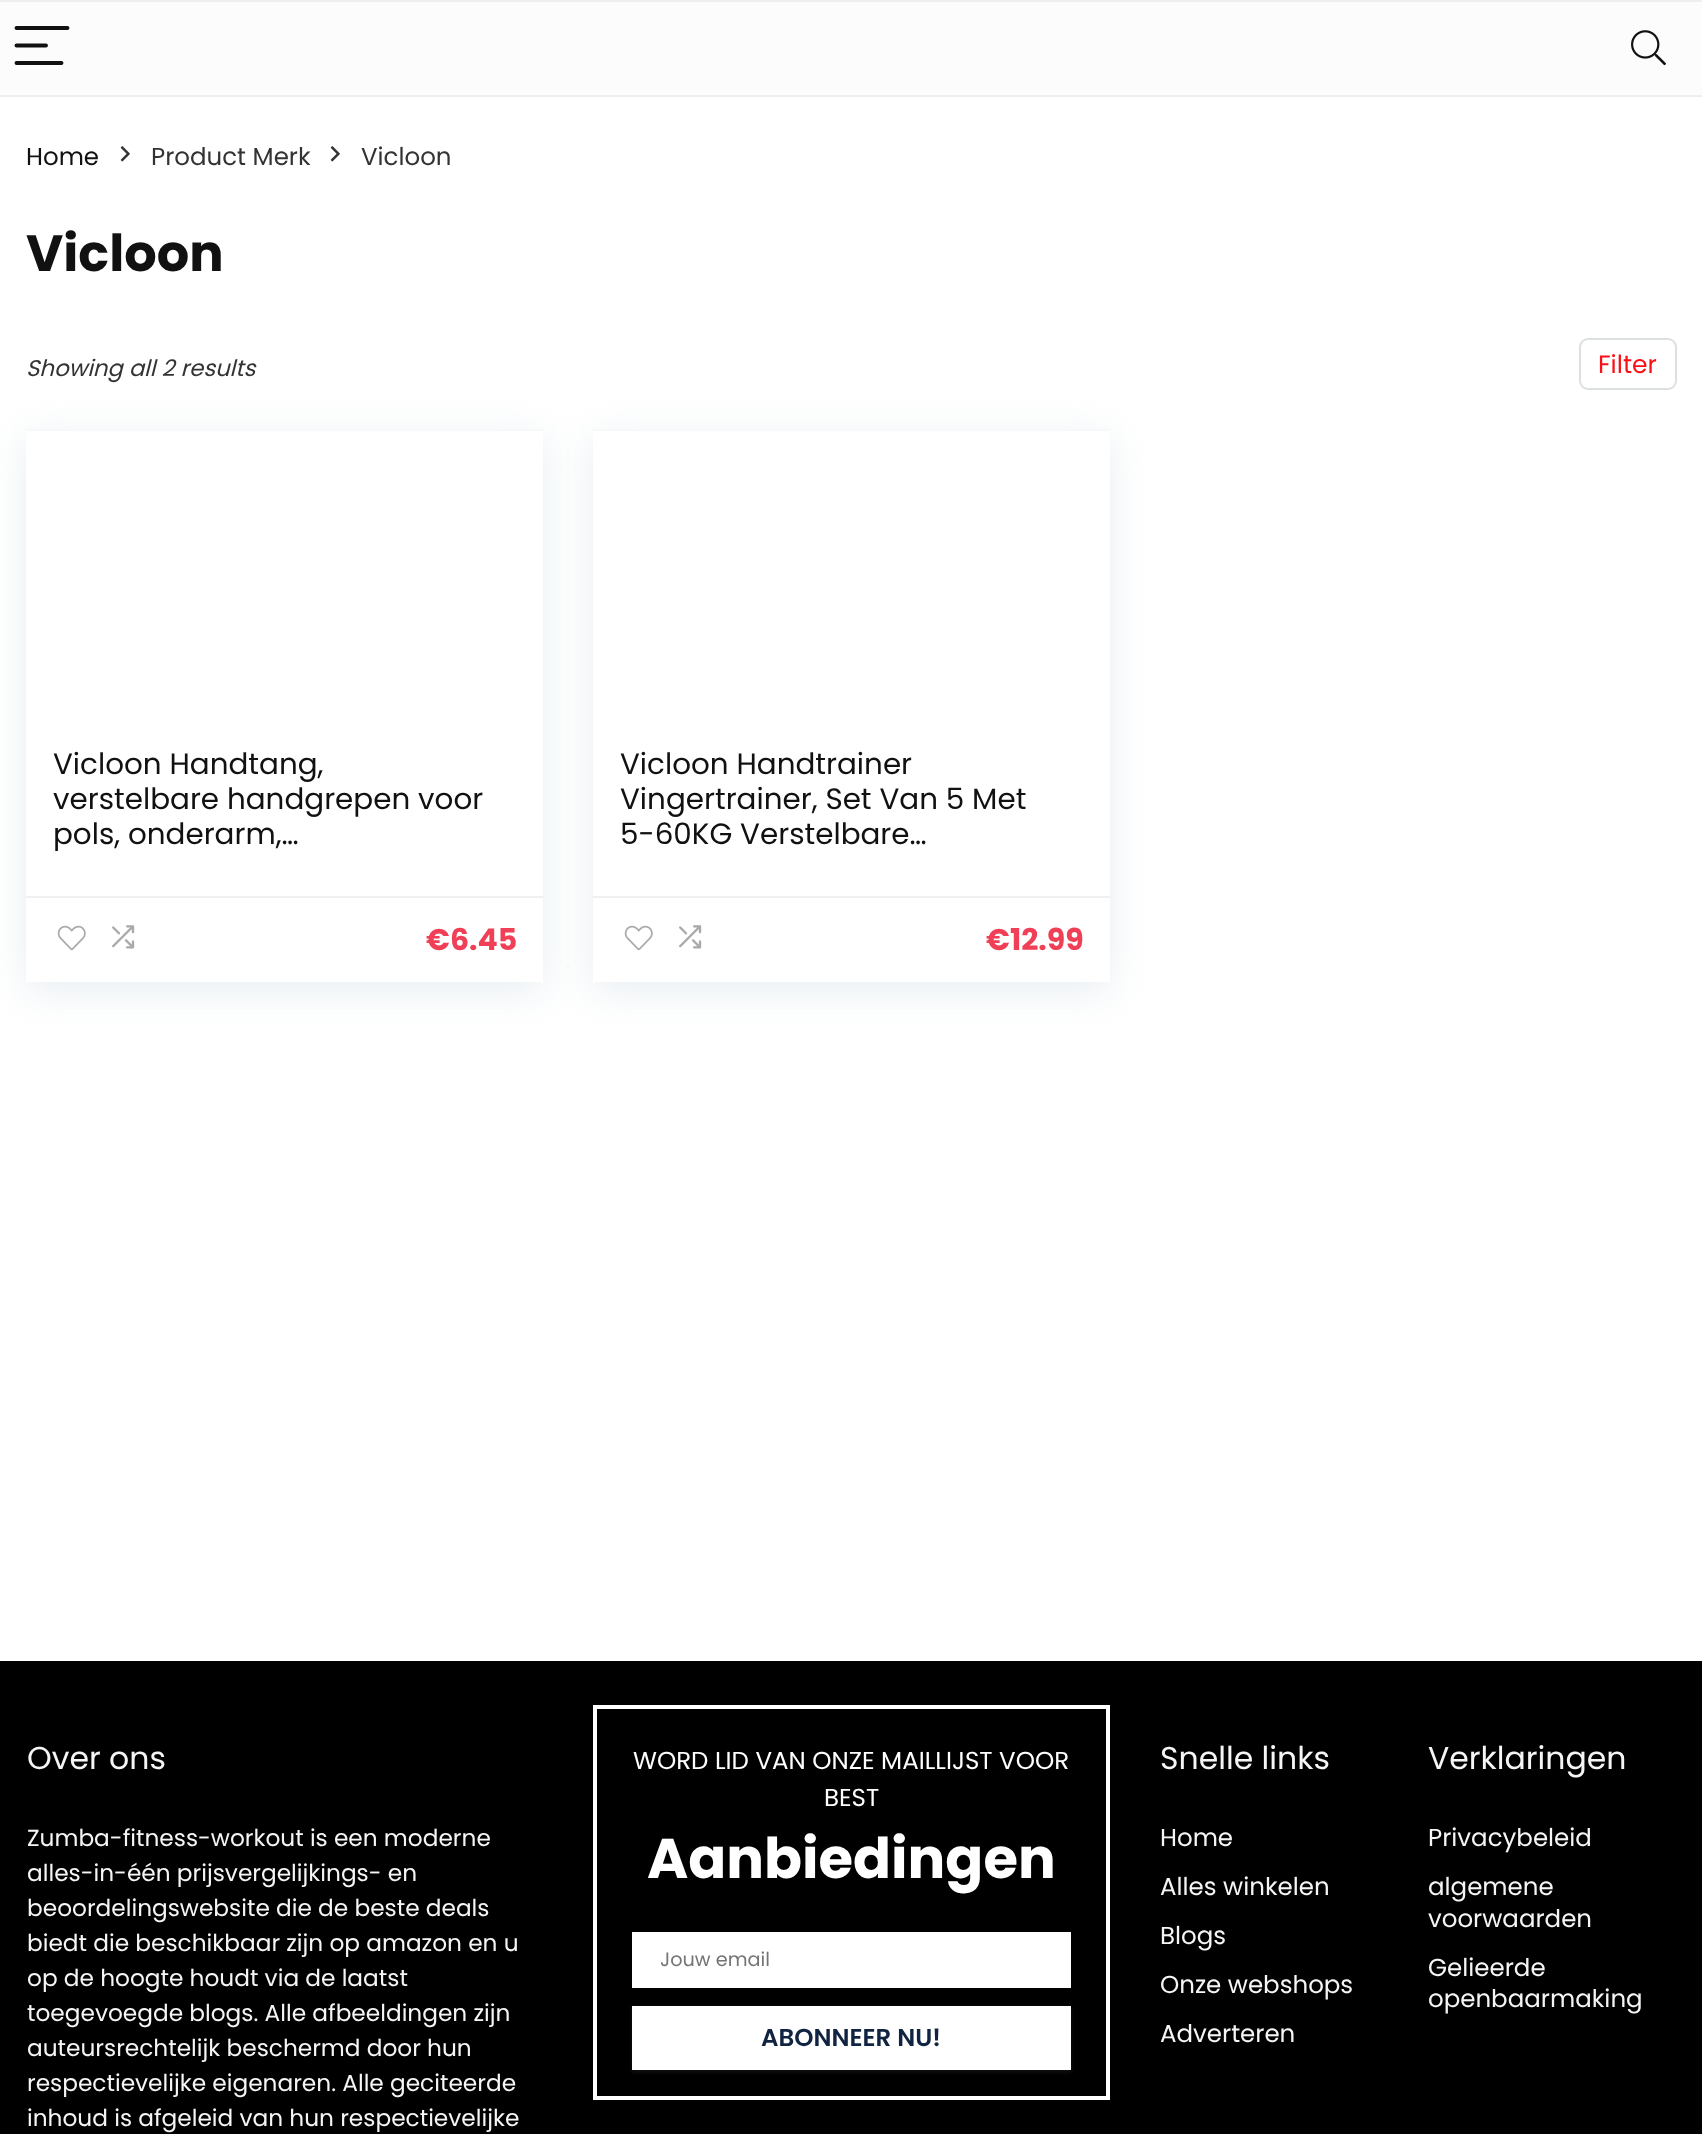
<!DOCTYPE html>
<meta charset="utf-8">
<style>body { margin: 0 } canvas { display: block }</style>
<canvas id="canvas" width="1702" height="2134"></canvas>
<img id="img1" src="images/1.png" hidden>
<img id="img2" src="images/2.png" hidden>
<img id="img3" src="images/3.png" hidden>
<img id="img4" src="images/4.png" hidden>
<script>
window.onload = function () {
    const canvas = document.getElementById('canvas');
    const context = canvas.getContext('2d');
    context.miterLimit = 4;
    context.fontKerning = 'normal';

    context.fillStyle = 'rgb(255, 255, 255)';
    context.fillRect(0, 0, 1702, 2134);
    context.fillStyle = 'rgb(252, 252, 252)';
    context.fillRect(0, 2, 1702, 93);
    context.fillStyle = 'rgb(238, 238, 238)';
    context.fillRect(0, 0, 1702, 2);
    context.fillRect(0, 95, 1702, 2);
    context.beginPath();
    context.moveTo(16.5, 28);
    context.lineTo(67.5, 28);
    context.moveTo(16.5, 45.5);
    context.lineTo(46, 45.5);
    context.moveTo(16.5, 63);
    context.lineTo(61.5, 63);
    context.strokeStyle = 'rgb(17, 17, 17)';
    context.lineWidth = 3.9;
    context.lineCap = 'round';
    context.stroke();
    context.drawImage(document.getElementById('img1'), 1631, 30, 35, 36);
    context.drawImage(document.getElementById('img2'), 120, 146, 10, 16);
    context.drawImage(document.getElementById('img2'), 330, 146, 10, 16);
    context.beginPath();
    context.roundRect(1580, 339, 96, 50, 8);
    context.strokeStyle = 'rgb(220, 224, 224)';
    context.lineWidth = 2;
    context.stroke();
    context.fillStyle = 'rgba(188, 207, 219, 0.35)';
    context.filter = 'blur(20px)';
    context.beginPath();
    context.rect(26, 438, 517, 553);
    context.fill();
    context.filter = 'none';
    context.fillStyle = 'rgb(255, 255, 255)';
    context.fillRect(26, 431, 517, 551);
    context.fillStyle = 'rgb(248, 248, 248)';
    context.fillRect(26, 429, 517, 2);
    context.fillStyle = 'rgb(240, 240, 240)';
    context.fillRect(26, 896, 517, 2);
    context.drawImage(document.getElementById('img3'), 57, 925, 29, 26);
    context.drawImage(document.getElementById('img4'), 112, 925, 23, 24);
    context.fillStyle = 'rgba(188, 207, 219, 0.35)';
    context.filter = 'blur(20px)';
    context.beginPath();
    context.rect(593, 438, 517, 553);
    context.fill();
    context.filter = 'none';
    context.fillStyle = 'rgb(255, 255, 255)';
    context.fillRect(593, 431, 517, 551);
    context.fillStyle = 'rgb(248, 248, 248)';
    context.fillRect(593, 429, 517, 2);
    context.fillStyle = 'rgb(240, 240, 240)';
    context.fillRect(593, 896, 517, 2);
    context.drawImage(document.getElementById('img3'), 624, 925, 29, 26);
    context.drawImage(document.getElementById('img4'), 679, 925, 23, 24);
    context.fillStyle = 'rgb(0, 0, 0)';
    context.fillRect(0, 1661, 1702, 473);
    context.strokeStyle = 'rgb(255, 255, 255)';
    context.lineWidth = 4;
    context.strokeRect(595, 1707, 513, 391);
    context.fillStyle = 'rgb(255, 255, 255)';
    context.fillRect(632, 1932, 439, 56);
    context.fillStyle = 'rgba(60, 64, 67, 0.3)';
    context.filter = 'blur(2px)';
    context.beginPath();
    context.rect(632, 2007, 439, 65);
    context.fill();
    context.filter = 'none';
    context.fillStyle = 'rgb(255, 255, 255)';
    context.fillRect(632, 2006, 439, 64);
    context.font = '24.5px Poppins';
    context.fillStyle = 'rgb(17, 17, 17)';
    context.fillText('Home', 26, 165);
    context.fillStyle = 'rgb(51, 51, 51)';
    context.fillText('Product Merk', 151, 165);
    context.fillText('Vicloon', 361, 165);
    context.font = 'bold 51px Poppins';
    context.fillStyle = 'rgb(17, 17, 17)';
    context.fillText('Vicloon', 26, 271);
    context.font = 'italic 22.75px Poppins';
    context.fillStyle = 'rgb(51, 51, 51)';
    context.fillText('Showing all 2 results', 26, 376);
    context.font = '25px Poppins';
    context.fillStyle = 'rgb(248, 17, 22)';
    context.fillText('Filter', 1598, 373);
    context.font = '29.4px Poppins';
    context.fillStyle = 'rgb(17, 17, 17)';
    context.fillText('Vicloon Handtang,', 53, 774);
    context.fillText('verstelbare handgrepen voor', 53, 809);
    context.save();
    context.beginPath();
    context.rect(53, 746, 437, 105);
    context.clip();
    context.fillText('pols, onderarm,…', 53, 844);
    context.restore();
    context.font = 'bold 30px Poppins';
    context.fillStyle = 'rgb(240, 64, 87)';
    context.fillText('€6.45', 426, 950);
    context.font = '29.4px Poppins';
    context.fillStyle = 'rgb(17, 17, 17)';
    context.fillText('Vicloon Handtrainer', 620, 774);
    context.fillText('Vingertrainer, Set Van 5 Met', 620, 809);
    context.fillText('5-60KG Verstelbare…', 620, 844);
    context.font = 'bold 30px Poppins';
    context.fillStyle = 'rgb(240, 64, 87)';
    context.fillText('€12.99', 986, 950);
    context.font = '31.5px Poppins';
    context.fillStyle = 'rgb(245, 245, 245)';
    context.fillText('Over ons', 27, 1769);
    context.font = '23.25px Poppins';
    context.fillText('Zumba-fitness-workout is een moderne', 27, 1846);
    context.fillText('alles-in-één prijsvergelijkings- en', 27, 1881);
    context.fillText('beoordelingswebsite die de beste deals', 27, 1916);
    context.fillText('biedt die beschikbaar zijn op amazon en u', 27, 1951);
    context.fillText('op de hoogte houdt via de laatst', 27, 1986);
    context.fillText('toegevoegde blogs. Alle afbeeldingen zijn', 27, 2021);
    context.fillText('auteursrechtelijk beschermd door hun', 27, 2056);
    context.fillText('respectievelijke eigenaren. Alle geciteerde', 27, 2091);
    context.fillText('inhoud is afgeleid van hun respectievelijke', 27, 2126);
    context.font = '24.5px Poppins';
    context.fillStyle = 'rgb(255, 255, 255)';
    context.fillText('WORD LID VAN ONZE MAILLIJST VOOR', 633, 1769);
    context.fillText('BEST', 824, 1806);
    context.font = 'bold 56px Poppins';
    context.fillText('Aanbiedingen', 647, 1878);
    context.font = '19.25px Poppins';
    context.fillStyle = 'rgb(117, 117, 117)';
    context.fillText('Jouw email', 660, 1966);
    context.font = '600 24.5px Poppins';
    context.fillStyle = 'rgb(16, 35, 65)';
    context.fillText('ABONNEER NU!', 761, 2046);
    context.font = '31.5px Poppins';
    context.fillStyle = 'rgb(245, 245, 245)';
    context.fillText('Snelle links', 1160, 1769);
    context.font = '24.5px Poppins';
    context.fillText('Home', 1160, 1846);
    context.fillText('Alles winkelen', 1160, 1895);
    context.fillText('Blogs', 1160, 1944);
    context.fillText('Onze webshops', 1160, 1993);
    context.fillText('Adverteren', 1160, 2042);
    context.font = '31.5px Poppins';
    context.fillText('Verklaringen', 1428, 1769);
    context.font = '24.5px Poppins';
    context.fillText('Privacybeleid', 1428, 1846);
    context.fillText('algemene', 1428, 1895);
    context.fillText('voorwaarden', 1428, 1927);
    context.fillText('Gelieerde', 1428, 1976);
    context.fillText('openbaarmaking', 1428, 2007);
};
</script>
